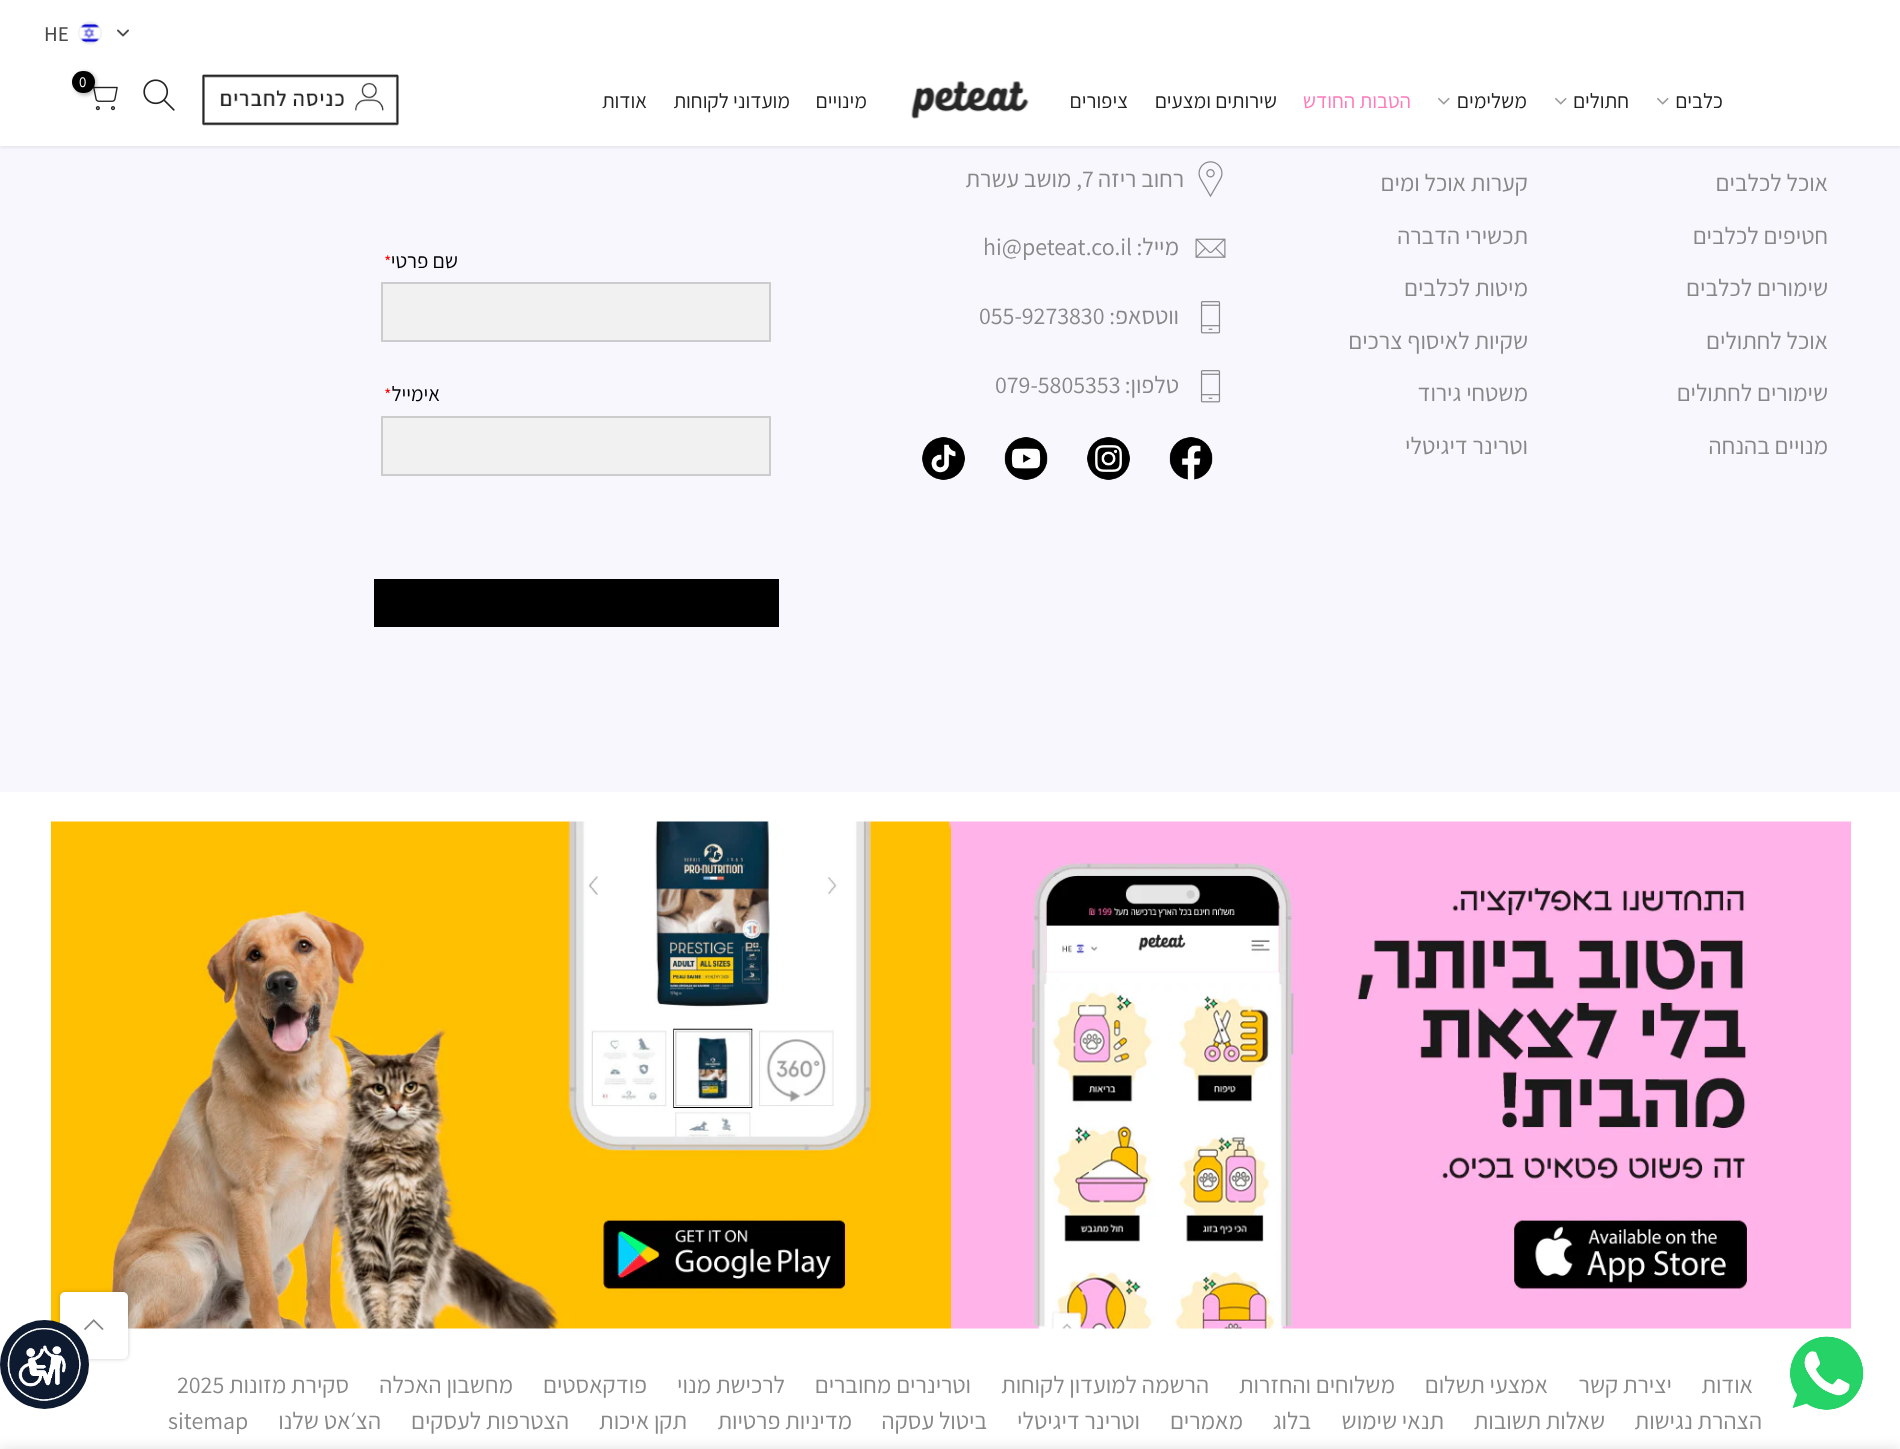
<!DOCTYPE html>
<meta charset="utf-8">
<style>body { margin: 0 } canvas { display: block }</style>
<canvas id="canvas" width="1900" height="1449"></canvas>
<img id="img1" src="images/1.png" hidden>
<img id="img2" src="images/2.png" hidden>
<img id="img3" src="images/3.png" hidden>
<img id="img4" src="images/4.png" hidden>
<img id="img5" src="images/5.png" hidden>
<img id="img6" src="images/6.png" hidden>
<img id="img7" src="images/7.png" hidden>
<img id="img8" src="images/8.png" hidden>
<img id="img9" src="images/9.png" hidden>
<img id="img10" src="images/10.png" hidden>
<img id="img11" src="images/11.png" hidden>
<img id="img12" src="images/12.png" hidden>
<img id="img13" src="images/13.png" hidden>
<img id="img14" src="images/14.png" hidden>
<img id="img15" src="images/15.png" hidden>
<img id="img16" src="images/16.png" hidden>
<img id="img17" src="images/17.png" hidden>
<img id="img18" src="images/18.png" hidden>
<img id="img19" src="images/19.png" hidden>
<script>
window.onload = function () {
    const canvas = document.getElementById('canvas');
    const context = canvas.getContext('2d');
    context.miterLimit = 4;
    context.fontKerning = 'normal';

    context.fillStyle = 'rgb(255, 255, 255)';
    context.fillRect(0, 0, 1900, 1449);
    context.fillStyle = 'rgb(247, 247, 253)';
    context.fillRect(0, 146, 1900, 646);
    context.fillStyle = 'rgba(0, 0, 0, 0.1)';
    context.filter = 'blur(2px)';
    context.beginPath();
    context.rect(0, 2, 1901, 145);
    context.fill();
    context.filter = 'none';
    context.fillStyle = 'rgb(255, 255, 255)';
    context.fillRect(0, 0, 1900, 146);
    context.drawImage(document.getElementById('img1'), 117, 29, 12, 8);
    context.beginPath();
    context.arc(90, 33, 11, 0, 2 * Math.PI);
    context.strokeStyle = 'rgb(240, 241, 242)';
    context.lineWidth = 2;
    context.stroke();
    context.drawImage(document.getElementById('img2'), 79, 23, 22, 20);
    context.drawImage(document.getElementById('img3'), 202, 74, 197, 52);
    context.drawImage(document.getElementById('img4'), 143, 79, 32, 32);
    context.drawImage(document.getElementById('img5'), 93, 85, 25, 26);
    context.fillStyle = 'rgba(0, 0, 0, 0.3)';
    context.filter = 'blur(2px)';
    context.beginPath();
    context.roundRect(74, 72, 22, 23, 11);
    context.fill();
    context.filter = 'none';
    context.fillStyle = 'rgb(0, 0, 0)';
    context.beginPath();
    context.roundRect(72, 71, 23, 22, 11);
    context.fill();
    context.drawImage(document.getElementById('img6'), 1657, 97, 12, 8);
    context.drawImage(document.getElementById('img6'), 1555, 97, 12, 8);
    context.drawImage(document.getElementById('img6'), 1438, 97, 12, 8);
    context.drawImage(document.getElementById('img7'), 911, 81, 118, 38);
    context.drawImage(document.getElementById('img8'), 1198, 161, 25, 37);
    context.drawImage(document.getElementById('img9'), 1195, 238, 31, 20);
    context.drawImage(document.getElementById('img10'), 1200, 301, 21, 33);
    context.drawImage(document.getElementById('img10'), 1200, 370, 21, 33);
    context.drawImage(document.getElementById('img11'), 1169, 437, 44, 43);
    context.drawImage(document.getElementById('img12'), 1087, 437, 43, 43);
    context.drawImage(document.getElementById('img13'), 1004, 437, 44, 43);
    context.drawImage(document.getElementById('img14'), 922, 437, 43, 43);
    context.fillStyle = 'rgb(241, 241, 241)';
    context.beginPath();
    context.rect(382, 283, 388, 58);
    context.fill();
    context.strokeStyle = 'rgb(204, 204, 204)';
    context.stroke();
    context.beginPath();
    context.rect(382, 417, 388, 58);
    context.fill();
    context.stroke();
    context.fillStyle = 'rgb(0, 0, 0)';
    context.fillRect(374, 579, 405, 48);
    context.drawImage(document.getElementById('img15'), 1790, 1336, 74, 74);
    context.drawImage(document.getElementById('img16'), 951, 821, 900, 508);
    context.drawImage(document.getElementById('img17'), 51, 821, 900, 508);
    context.fillStyle = 'rgba(0, 0, 0, 0.2)';
    context.filter = 'blur(2px)';
    context.beginPath();
    context.roundRect(60, 1292, 68, 67, 5);
    context.fill();
    context.filter = 'none';
    context.fillStyle = 'rgb(255, 255, 255)';
    context.beginPath();
    context.roundRect(60, 1292, 68, 67, 5);
    context.fill();
    context.drawImage(document.getElementById('img18'), 84, 1319, 20, 12);
    context.fillStyle = 'rgb(13, 26, 47)';
    context.beginPath();
    context.arc(44.5, 1364.5, 44.5, 0, 2 * Math.PI);
    context.fill();
    context.drawImage(document.getElementById('img19'), 7, 1328, 74, 73);
    context.fillStyle = 'rgba(0, 0, 0, 0.12)';
    context.filter = 'blur(7px)';
    context.beginPath();
    context.rect(0, 1449, 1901, 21);
    context.fill();
    context.filter = 'none';
    context.font = '500 21px Assistant';
    context.fillStyle = 'rgb(74, 74, 74)';
    context.fillText('HE', 44, 41);
    context.font = '15px Assistant';
    context.fillStyle = 'rgb(255, 255, 255)';
    context.fillText('0', 79, 87);
    context.direction = 'rtl';
    context.font = '21px Assistant';
    context.fillStyle = 'rgb(34, 34, 34)';
    context.fillText('כלבים', 1723, 108);
    context.fillText('חתולים', 1629, 108);
    context.fillText('משלימים', 1527, 108);
    context.fillStyle = 'rgb(253, 123, 187)';
    context.fillText('הטבות החודש', 1411, 108);
    context.fillStyle = 'rgb(34, 34, 34)';
    context.fillText('שירותים ומצעים', 1277, 108);
    context.fillText('ציפורים', 1128, 108);
    context.fillText('מינויים', 867, 108);
    context.fillText('מועדוני לקוחות', 790, 108);
    context.fillText('אודות', 647, 108);
    context.font = '24px Assistant';
    context.fillStyle = 'rgb(135, 135, 135)';
    context.fillText('אוכל לכלבים', 1828, 191);
    context.fillText('חטיפים לכלבים', 1828, 244);
    context.fillText('שימורים לכלבים', 1828, 296);
    context.fillText('אוכל לחתולים', 1828, 349);
    context.fillText('שימורים לחתולים', 1828, 401);
    context.fillText('מנויים בהנחה', 1828, 454);
    context.fillText('קערות אוכל ומים', 1528, 191);
    context.fillText('תכשירי הדברה', 1528, 244);
    context.fillText('מיטות לכלבים', 1528, 296);
    context.fillText('שקיות לאיסוף צרכים', 1528, 349);
    context.fillText('משטחי גירוד', 1528, 401);
    context.fillText('וטרינר דיגיטלי', 1528, 454);
    context.fillText('רחוב ריזה', 1184, 187);
    context.direction = 'ltr';
    context.fillText('7', 1082, 187);
    context.direction = 'rtl';
    context.fillText(', מושב עשרת', 1082, 187);
    context.fillText('מייל:', 1179, 255);
    context.direction = 'ltr';
    context.fillText('hi@peteat.co.il', 983, 255);
    context.direction = 'rtl';
    context.fillText('ווטסאפ:', 1179, 324);
    context.direction = 'ltr';
    context.fillText('055-9273830', 979, 324);
    context.direction = 'rtl';
    context.fillText('טלפון:', 1179, 393);
    context.direction = 'ltr';
    context.fillText('079-5805353', 995, 393);
    context.direction = 'rtl';
    context.font = '21px Assistant';
    context.fillStyle = 'rgb(0, 0, 0)';
    context.fillText('שם פרטי', 458, 268);
    context.direction = 'ltr';
    context.font = '18px Assistant';
    context.fillStyle = 'rgb(255, 0, 0)';
    context.fillText('*', 384, 268);
    context.direction = 'rtl';
    context.font = '21px Assistant';
    context.fillStyle = 'rgb(0, 0, 0)';
    context.fillText('אימייל', 440, 401);
    context.direction = 'ltr';
    context.font = '18px Assistant';
    context.fillStyle = 'rgb(255, 0, 0)';
    context.fillText('*', 384, 401);
    context.direction = 'rtl';
    context.font = '24px Assistant';
    context.fillStyle = 'rgb(135, 135, 135)';
    context.fillText('אודות', 1753, 1393);
    context.fillText('יצירת קשר', 1672, 1393);
    context.fillText('אמצעי תשלום', 1548, 1393);
    context.fillText('משלוחים והחזרות', 1395, 1393);
    context.fillText('הרשמה למועדון לקוחות', 1209, 1393);
    context.fillText('וטרינרים מחוברים', 971, 1393);
    context.fillText('לרכישת מנוי', 785, 1393);
    context.fillText('פודקאסטים', 647, 1393);
    context.fillText('מחשבון האכלה', 513, 1393);
    context.fillText('סקירת מזונות', 349, 1393);
    context.direction = 'ltr';
    context.fillText('2025', 177, 1393);
    context.direction = 'rtl';
    context.fillText('הצהרת נגישות', 1762, 1429);
    context.fillText('שאלות תשובות', 1605, 1429);
    context.fillText('תנאי שימוש', 1444, 1429);
    context.fillText('בלוג', 1311, 1429);
    context.fillText('מאמרים', 1243, 1429);
    context.fillText('וטרינר דיגיטלי', 1140, 1429);
    context.fillText('ביטול עסקה', 987, 1429);
    context.fillText('מדיניות פרטיות', 852, 1429);
    context.fillText('תקן איכות', 687, 1429);
    context.fillText('הצטרפות לעסקים', 569, 1429);
    context.fillText('הצ׳אט שלנו', 381, 1429);
    context.direction = 'ltr';
    context.fillText('sitemap', 168, 1429);
};
</script>
